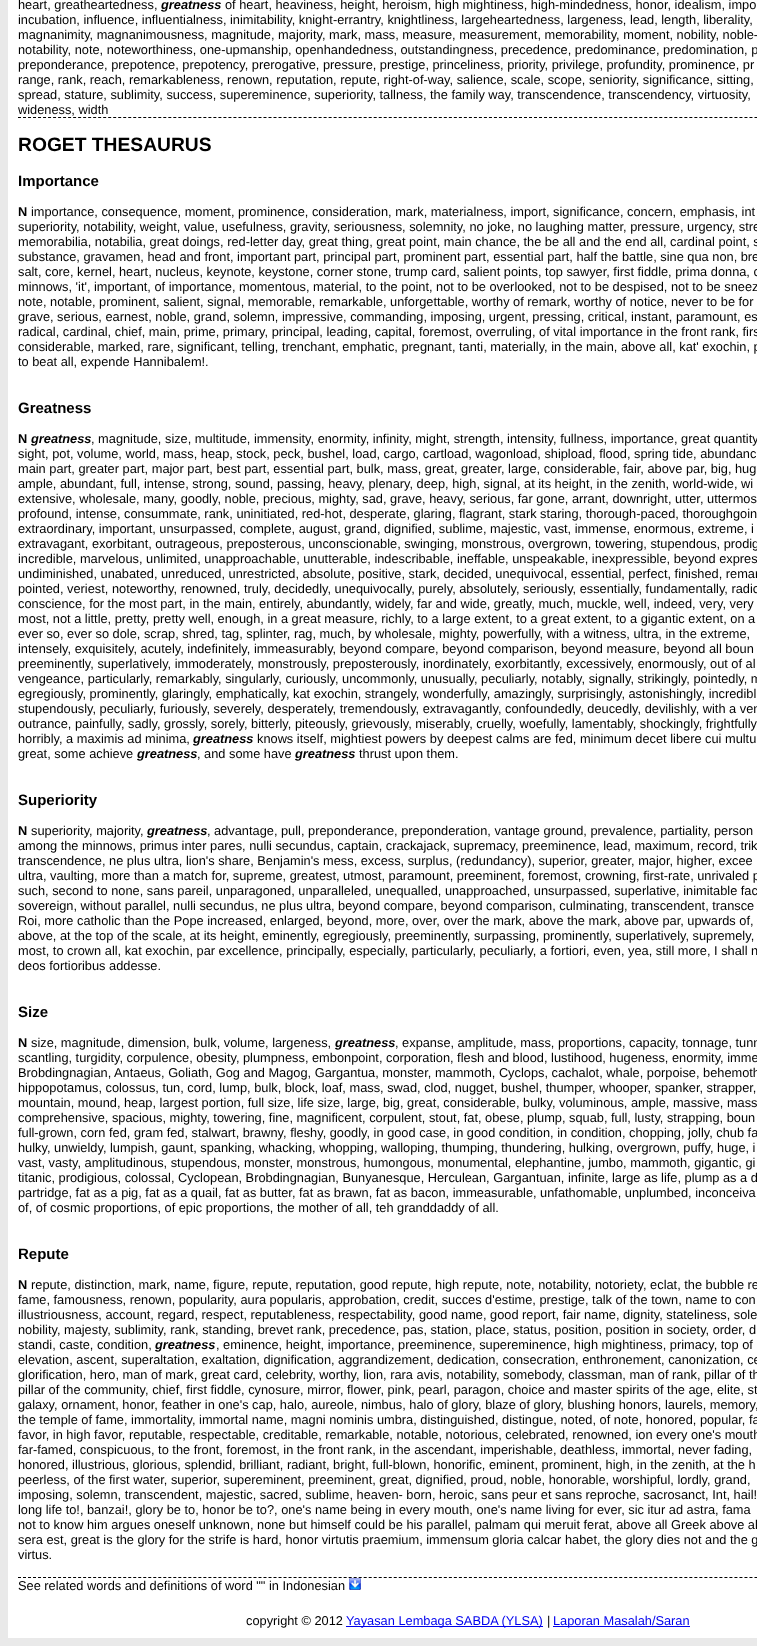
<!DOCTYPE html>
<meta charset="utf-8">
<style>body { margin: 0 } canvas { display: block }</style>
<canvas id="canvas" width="757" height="1646"></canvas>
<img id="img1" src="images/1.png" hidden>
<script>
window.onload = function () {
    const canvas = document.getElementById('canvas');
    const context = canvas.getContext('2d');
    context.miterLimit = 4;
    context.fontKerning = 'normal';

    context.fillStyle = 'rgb(233, 233, 233)';
    context.fillRect(0, 0, 757, 1646);
    context.fillStyle = 'rgb(255, 255, 255)';
    context.fillRect(8, 0, 749, 1638);
    context.beginPath();
    context.moveTo(18, 117.5);
    context.lineTo(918, 117.5);
    context.strokeStyle = 'rgb(0, 0, 0)';
    context.setLineDash([3, 2.01]);
    context.stroke();
    context.beginPath();
    context.moveTo(18, 1577.5);
    context.lineTo(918, 1577.5);
    context.stroke();
    context.drawImage(document.getElementById('img1'), 349, 1578, 12, 12);
    context.fillStyle = 'rgb(0, 0, 238)';
    context.fillRect(346, 1626, 197, 1);
    context.fillRect(553, 1626, 137, 1);
    context.font = '12.8px Liberation Sans';
    context.fillStyle = 'rgb(0, 0, 0)';
    context.fillText('heart, greatheartedness,', 18, 9);
    context.font = 'italic bold 12.8px Liberation Sans';
    context.fillText('greatness', 161, 9);
    context.font = '12.8px Liberation Sans';
    context.fillText('of heart, heaviness, height, heroism, high mightiness, high-mindedness, honor, idealism, impo', 225, 9);
    context.fillText('incubation, influence, influentialness, inimitability, knight-errantry, knightliness, largeheartedness, largeness, lead, length, liberality,', 18, 24);
    context.fillText('magnanimity, magnanimousness, magnitude, majority, mark, mass, measure, measurement, memorability, moment, nobility, noble-', 18, 39);
    context.fillText('notability, note, noteworthiness, one-upmanship, openhandedness, outstandingness, precedence, predominance, predomination, p', 18, 54);
    context.fillText('preponderance, prepotence, prepotency, prerogative, pressure, prestige, princeliness, priority, privilege, profundity, prominence, pr', 18, 69);
    context.fillText('range, rank, reach, remarkableness, renown, reputation, repute, right-of-way, salience, scale, scope, seniority, significance, sitting,', 18, 84);
    context.fillText('spread, stature, sublimity, success, supereminence, superiority, tallness, the family way, transcendence, transcendency, virtuosity,', 18, 99);
    context.fillText('wideness, width', 18, 114);
    context.font = 'bold 19.25px Liberation Sans';
    context.fillText('ROGET THESAURUS', 18, 151);
    context.font = 'bold 15px Liberation Sans';
    context.fillText('Importance', 18, 186);
    context.font = 'bold 12.8px Liberation Sans';
    context.fillText('N', 18, 216);
    context.font = '12.8px Liberation Sans';
    context.fillText('importance, consequence, moment, prominence, consideration, mark, materialness, import, significance, concern, emphasis, int', 31, 216);
    context.fillText('superiority, notability, weight, value, usefulness, gravity, seriousness, solemnity, no joke, no laughing matter, pressure, urgency, stre', 18, 231);
    context.fillText('memorabilia, notabilia, great doings, red-letter day, great thing, great point, main chance, the be all and the end all, cardinal point, s', 18, 246);
    context.fillText('substance, gravamen, head and front, important part, principal part, prominent part, essential part, half the battle, sine qua non, bre', 18, 261);
    context.fillText('salt, core, kernel, heart, nucleus, keynote, keystone, corner stone, trump card, salient points, top sawyer, first fiddle, prima donna, c', 18, 276);
    context.fillText('minnows, \'it\', important, of importance, momentous, material, to the point, not to be overlooked, not to be despised, not to be sneez', 18, 291);
    context.fillText('note, notable, prominent, salient, signal, memorable, remarkable, unforgettable, worthy of remark, worthy of notice, never to be for', 18, 306);
    context.fillText('grave, serious, earnest, noble, grand, solemn, impressive, commanding, imposing, urgent, pressing, critical, instant, paramount, es', 18, 321);
    context.fillText('radical, cardinal, chief, main, prime, primary, principal, leading, capital, foremost, overruling, of vital importance in the front rank, firs', 18, 336);
    context.fillText('considerable, marked, rare, significant, telling, trenchant, emphatic, pregnant, tanti, materially, in the main, above all, kat\' exochin, p', 18, 351);
    context.fillText('to beat all, expende Hannibalem!.', 18, 366);
    context.font = 'bold 15px Liberation Sans';
    context.fillText('Greatness', 18, 413);
    context.font = 'bold 12.8px Liberation Sans';
    context.fillText('N', 18, 443);
    context.font = 'italic bold 12.8px Liberation Sans';
    context.fillText('greatness', 31, 443);
    context.font = '12.8px Liberation Sans';
    context.fillText(', magnitude, size, multitude, immensity, enormity, infinity, might, strength, intensity, fullness, importance, great quantity', 91, 443);
    context.fillText('sight, pot, volume, world, mass, heap, stock, peck, bushel, load, cargo, cartload, wagonload, shipload, flood, spring tide, abundanc', 18, 458);
    context.fillText('main part, greater part, major part, best part, essential part, bulk, mass, great, greater, large, considerable, fair, above par, big, hug', 18, 473);
    context.fillText('ample, abundant, full, intense, strong, sound, passing, heavy, plenary, deep, high, signal, at its height, in the zenith, world-wide, wi', 18, 488);
    context.fillText('extensive, wholesale, many, goodly, noble, precious, mighty, sad, grave, heavy, serious, far gone, arrant, downright, utter, uttermos', 18, 503);
    context.fillText('profound, intense, consummate, rank, uninitiated, red-hot, desperate, glaring, flagrant, stark staring, thorough-paced, thoroughgoin', 18, 518);
    context.fillText('extraordinary, important, unsurpassed, complete, august, grand, dignified, sublime, majestic, vast, immense, enormous, extreme, i', 18, 533);
    context.fillText('extravagant, exorbitant, outrageous, preposterous, unconscionable, swinging, monstrous, overgrown, towering, stupendous, prodig', 18, 548);
    context.fillText('incredible, marvelous, unlimited, unapproachable, unutterable, indescribable, ineffable, unspeakable, inexpressible, beyond expres', 18, 563);
    context.fillText('undiminished, unabated, unreduced, unrestricted, absolute, positive, stark, decided, unequivocal, essential, perfect, finished, remar', 18, 578);
    context.fillText('pointed, veriest, noteworthy, renowned, truly, decidedly, unequivocally, purely, absolutely, seriously, essentially, fundamentally, radic', 18, 593);
    context.fillText('conscience, for the most part, in the main, entirely, abundantly, widely, far and wide, greatly, much, muckle, well, indeed, very, very', 18, 608);
    context.fillText('most, not a little, pretty, pretty well, enough, in a great measure, richly, to a large extent, to a great extent, to a gigantic extent, on a', 18, 623);
    context.fillText('ever so, ever so dole, scrap, shred, tag, splinter, rag, much, by wholesale, mighty, powerfully, with a witness, ultra, in the extreme,', 18, 638);
    context.fillText('intensely, exquisitely, acutely, indefinitely, immeasurably, beyond compare, beyond comparison, beyond measure, beyond all boun', 18, 653);
    context.fillText('preeminently, superlatively, immoderately, monstrously, preposterously, inordinately, exorbitantly, excessively, enormously, out of al', 18, 668);
    context.fillText('vengeance, particularly, remarkably, singularly, curiously, uncommonly, unusually, peculiarly, notably, signally, strikingly, pointedly, m', 18, 683);
    context.fillText('egregiously, prominently, glaringly, emphatically, kat exochin, strangely, wonderfully, amazingly, surprisingly, astonishingly, incredibl', 18, 698);
    context.fillText('stupendously, peculiarly, furiously, severely, desperately, tremendously, extravagantly, confoundedly, deucedly, devilishly, with a ven', 18, 713);
    context.fillText('outrance, painfully, sadly, grossly, sorely, bitterly, piteously, grievously, miserably, cruelly, woefully, lamentably, shockingly, frightfully', 18, 728);
    context.fillText('horribly, a maximis ad minima,', 18, 743);
    context.font = 'italic bold 12.8px Liberation Sans';
    context.fillText('greatness', 193, 743);
    context.font = '12.8px Liberation Sans';
    context.fillText('knows itself, mightiest powers by deepest calms are fed, minimum decet libere cui multu', 257, 743);
    context.fillText('great, some achieve', 18, 758);
    context.font = 'italic bold 12.8px Liberation Sans';
    context.fillText('greatness', 137, 758);
    context.font = '12.8px Liberation Sans';
    context.fillText(', and some have', 197, 758);
    context.font = 'italic bold 12.8px Liberation Sans';
    context.fillText('greatness', 295, 758);
    context.font = '12.8px Liberation Sans';
    context.fillText('thrust upon them.', 359, 758);
    context.font = 'bold 15px Liberation Sans';
    context.fillText('Superiority', 18, 805);
    context.font = 'bold 12.8px Liberation Sans';
    context.fillText('N', 18, 835);
    context.font = '12.8px Liberation Sans';
    context.fillText('superiority, majority,', 31, 835);
    context.font = 'italic bold 12.8px Liberation Sans';
    context.fillText('greatness', 147, 835);
    context.font = '12.8px Liberation Sans';
    context.fillText(', advantage, pull, preponderance, preponderation, vantage ground, prevalence, partiality, person', 207, 835);
    context.fillText('among the minnows, primus inter pares, nulli secundus, captain, crackajack, supremacy, preeminence, lead, maximum, record, trik', 18, 850);
    context.fillText('transcendence, ne plus ultra, lion\'s share, Benjamin\'s mess, excess, surplus, (redundancy), superior, greater, major, higher, excee', 18, 865);
    context.fillText('ultra, vaulting, more than a match for, supreme, greatest, utmost, paramount, preeminent, foremost, crowning, first-rate, unrivaled p', 18, 880);
    context.fillText('such, second to none, sans pareil, unparagoned, unparalleled, unequalled, unapproached, unsurpassed, superlative, inimitable fac', 18, 895);
    context.fillText('sovereign, without parallel, nulli secundus, ne plus ultra, beyond compare, beyond comparison, culminating, transcendent, transce', 18, 910);
    context.fillText('Roi, more catholic than the Pope increased, enlarged, beyond, more, over, over the mark, above the mark, above par, upwards of,', 18, 925);
    context.fillText('above, at the top of the scale, at its height, eminently, egregiously, preeminently, surpassing, prominently, superlatively, supremely,', 18, 940);
    context.fillText('most, to crown all, kat exochin, par excellence, principally, especially, particularly, peculiarly, a fortiori, even, yea, still more, I shall n', 18, 955);
    context.fillText('deos fortioribus addesse.', 18, 970);
    context.font = 'bold 15px Liberation Sans';
    context.fillText('Size', 18, 1017);
    context.font = 'bold 12.8px Liberation Sans';
    context.fillText('N', 18, 1047);
    context.font = '12.8px Liberation Sans';
    context.fillText('size, magnitude, dimension, bulk, volume, largeness,', 31, 1047);
    context.font = 'italic bold 12.8px Liberation Sans';
    context.fillText('greatness', 335, 1047);
    context.font = '12.8px Liberation Sans';
    context.fillText(', expanse, amplitude, mass, proportions, capacity, tonnage, tunn', 395, 1047);
    context.fillText('scantling, turgidity, corpulence, obesity, plumpness, embonpoint, corporation, flesh and blood, lustihood, hugeness, enormity, imme', 18, 1062);
    context.fillText('Brobdingnagian, Antaeus, Goliath, Gog and Magog, Gargantua, monster, mammoth, Cyclops, cachalot, whale, porpoise, behemoth', 18, 1077);
    context.fillText('hippopotamus, colossus, tun, cord, lump, bulk, block, loaf, mass, swad, clod, nugget, bushel, thumper, whooper, spanker, strapper,', 18, 1092);
    context.fillText('mountain, mound, heap, largest portion, full size, life size, large, big, great, considerable, bulky, voluminous, ample, massive, mass', 18, 1107);
    context.fillText('comprehensive, spacious, mighty, towering, fine, magnificent, corpulent, stout, fat, obese, plump, squab, full, lusty, strapping, boun', 18, 1122);
    context.fillText('full-grown, corn fed, gram fed, stalwart, brawny, fleshy, goodly, in good case, in good condition, in condition, chopping, jolly, chub fa', 18, 1137);
    context.fillText('hulky, unwieldy, lumpish, gaunt, spanking, whacking, whopping, walloping, thumping, thundering, hulking, overgrown, puffy, huge, i', 18, 1152);
    context.fillText('vast, vasty, amplitudinous, stupendous, monster, monstrous, humongous, monumental, elephantine, jumbo, mammoth, gigantic, gi', 18, 1167);
    context.fillText('titanic, prodigious, colossal, Cyclopean, Brobdingnagian, Bunyanesque, Herculean, Gargantuan, infinite, large as life, plump as a d', 18, 1182);
    context.fillText('partridge, fat as a pig, fat as a quail, fat as butter, fat as brawn, fat as bacon, immeasurable, unfathomable, unplumbed, inconceiva', 18, 1197);
    context.fillText('of, of cosmic proportions, of epic proportions, the mother of all, teh granddaddy of all.', 18, 1212);
    context.font = 'bold 15px Liberation Sans';
    context.fillText('Repute', 18, 1259);
    context.font = 'bold 12.8px Liberation Sans';
    context.fillText('N', 18, 1289);
    context.font = '12.8px Liberation Sans';
    context.fillText('repute, distinction, mark, name, figure, repute, reputation, good repute, high repute, note, notability, notoriety, eclat, the bubble re', 31, 1289);
    context.fillText('fame, famousness, renown, popularity, aura popularis, approbation, credit, succes d\'estime, prestige, talk of the town, name to con', 18, 1304);
    context.fillText('illustriousness, account, regard, respect, reputableness, respectability, good name, good report, fair name, dignity, stateliness, sole', 18, 1319);
    context.fillText('nobility, majesty, sublimity, rank, standing, brevet rank, precedence, pas, station, place, status, position, position in society, order, d', 18, 1334);
    context.fillText('standi, caste, condition,', 18, 1349);
    context.font = 'italic bold 12.8px Liberation Sans';
    context.fillText('greatness', 155, 1349);
    context.font = '12.8px Liberation Sans';
    context.fillText(', eminence, height, importance, preeminence, supereminence, high mightiness, primacy, top of', 216, 1349);
    context.fillText('elevation, ascent, superaltation, exaltation, dignification, aggrandizement, dedication, consecration, enthronement, canonization, ce', 18, 1364);
    context.fillText('glorification, hero, man of mark, great card, celebrity, worthy, lion, rara avis, notability, somebody, classman, man of rank, pillar of th', 18, 1379);
    context.fillText('pillar of the community, chief, first fiddle, cynosure, mirror, flower, pink, pearl, paragon, choice and master spirits of the age, elite, st', 18, 1394);
    context.fillText('galaxy, ornament, honor, feather in one\'s cap, halo, aureole, nimbus, halo of glory, blaze of glory, blushing honors, laurels, memory,', 18, 1409);
    context.fillText('the temple of fame, immortality, immortal name, magni nominis umbra, distinguished, distingue, noted, of note, honored, popular, fa', 18, 1424);
    context.fillText('favor, in high favor, reputable, respectable, creditable, remarkable, notable, notorious, celebrated, renowned, ion every one\'s mouth', 18, 1439);
    context.fillText('far-famed, conspicuous, to the front, foremost, in the front rank, in the ascendant, imperishable, deathless, immortal, never fading,', 18, 1454);
    context.fillText('honored, illustrious, glorious, splendid, brilliant, radiant, bright, full-blown, honorific, eminent, prominent, high, in the zenith, at the h', 18, 1469);
    context.fillText('peerless, of the first water, superior, supereminent, preeminent, great, dignified, proud, noble, honorable, worshipful, lordly, grand,', 18, 1484);
    context.fillText('imposing, solemn, transcendent, majestic, sacred, sublime, heaven- born, heroic, sans peur et sans reproche, sacrosanct, Int, hail!', 18, 1499);
    context.fillText('long life to!, banzai!, glory be to, honor be to?, one\'s name being in every mouth, one\'s name living for ever, sic itur ad astra, fama', 18, 1514);
    context.fillText('not to know him argues oneself unknown, none but himself could be his parallel, palmam qui meruit ferat, above all Greek above al', 18, 1529);
    context.fillText('sera est, great is the glory for the strife is hard, honor virtutis praemium, immensum gloria calcar habet, the glory dies not and the g', 18, 1544);
    context.fillText('virtus.', 18, 1559);
    context.fillText('See related words and definitions of word "" in Indonesian', 18, 1590);
    context.fillText('copyright © 2012', 246, 1625);
    context.fillStyle = 'rgb(0, 0, 238)';
    context.fillText('Yayasan Lembaga SABDA (YLSA)', 346, 1625);
    context.fillStyle = 'rgb(0, 0, 0)';
    context.fillText('|', 547, 1625);
    context.fillStyle = 'rgb(0, 0, 238)';
    context.fillText('Laporan Masalah/Saran', 553, 1625);
};
</script>
